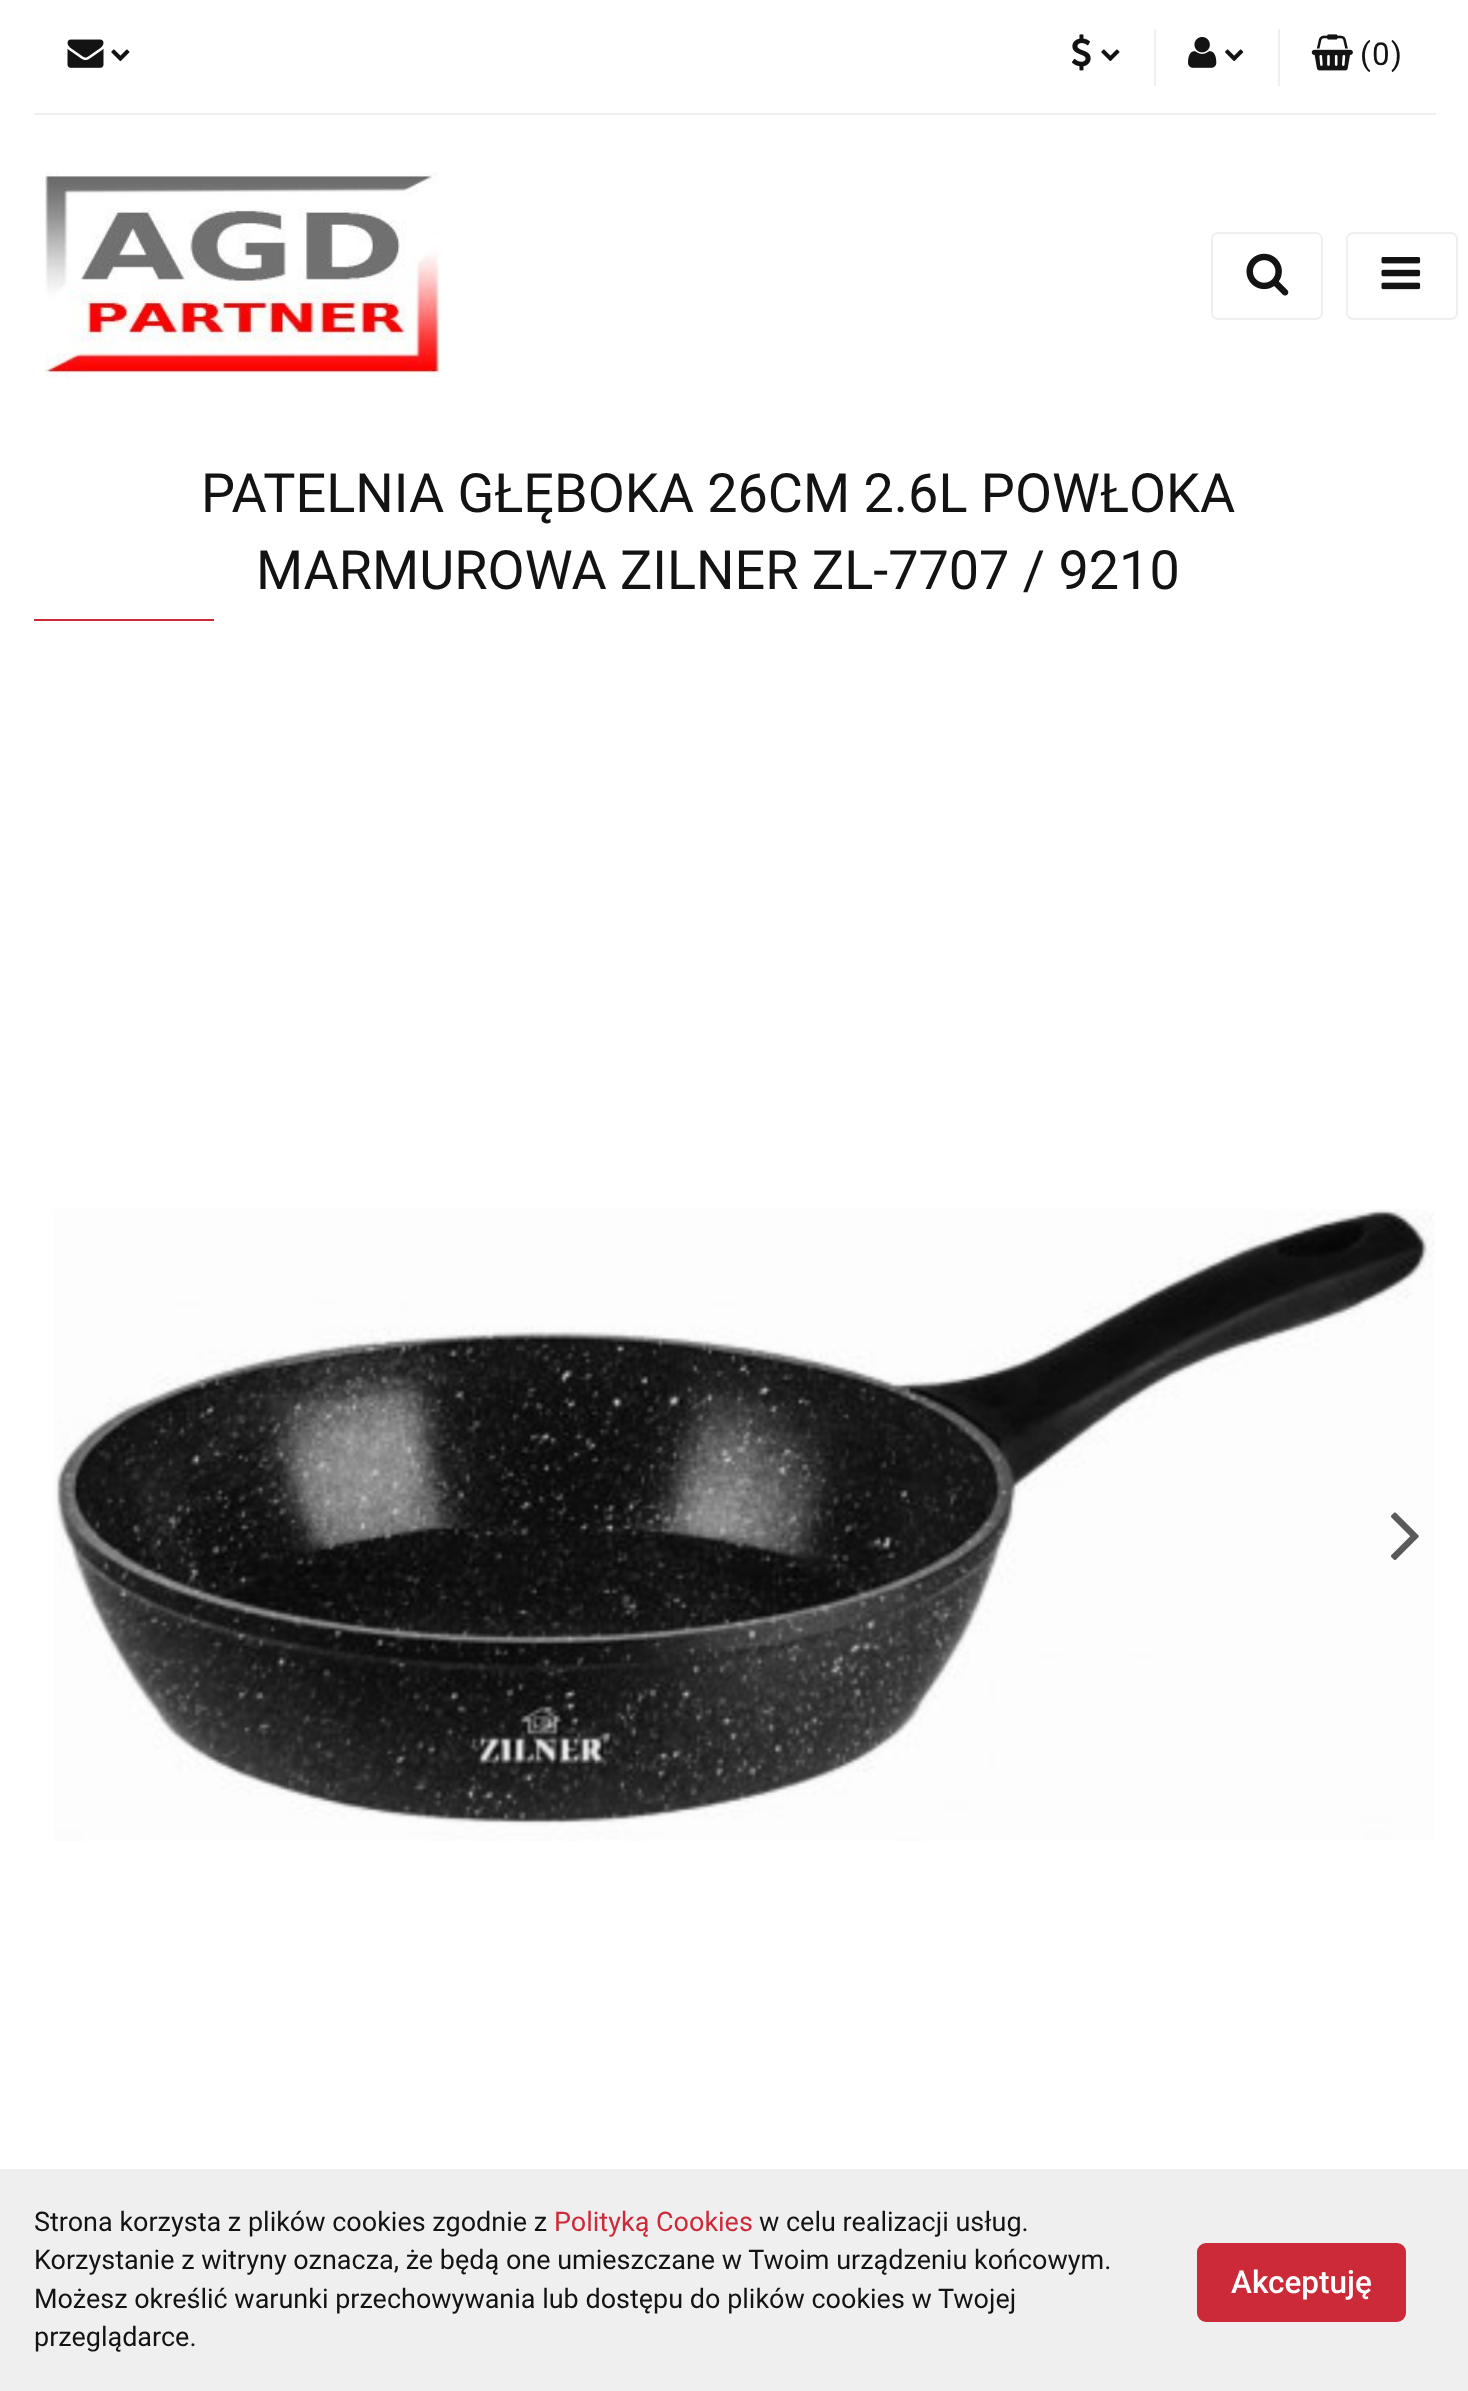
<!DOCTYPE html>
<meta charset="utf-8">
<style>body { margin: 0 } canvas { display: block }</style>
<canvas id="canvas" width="1468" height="2391"></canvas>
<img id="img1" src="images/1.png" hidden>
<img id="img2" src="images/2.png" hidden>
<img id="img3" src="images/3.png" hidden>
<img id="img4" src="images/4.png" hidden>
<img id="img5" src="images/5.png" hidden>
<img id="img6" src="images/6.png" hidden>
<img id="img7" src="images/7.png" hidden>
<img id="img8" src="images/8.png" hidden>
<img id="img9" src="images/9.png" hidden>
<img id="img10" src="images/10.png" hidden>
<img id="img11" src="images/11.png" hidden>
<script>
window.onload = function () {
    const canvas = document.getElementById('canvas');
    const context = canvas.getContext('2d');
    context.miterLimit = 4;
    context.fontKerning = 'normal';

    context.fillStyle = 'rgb(255, 255, 255)';
    context.fillRect(0, 0, 1468, 2391);
    context.fillStyle = 'rgb(239, 239, 239)';
    context.fillRect(34, 113, 1402, 2);
    context.drawImage(document.getElementById('img1'), 67, 39, 37, 29);
    context.drawImage(document.getElementById('img2'), 111, 49, 19, 13);
    context.drawImage(document.getElementById('img3'), 1071, 34, 20, 37);
    context.drawImage(document.getElementById('img2'), 1101, 49, 19, 13);
    context.fillRect(1154, 29, 2, 57);
    context.drawImage(document.getElementById('img4'), 1188, 37, 29, 31);
    context.drawImage(document.getElementById('img5'), 1225, 49, 19, 13);
    context.fillRect(1278, 29, 2, 57);
    context.drawImage(document.getElementById('img6'), 1311, 34, 42, 37);
    context.drawImage(document.getElementById('img7'), 45, 172, 394, 206);
    context.beginPath();
    context.roundRect(1212, 233, 110, 86, 6);
    context.strokeStyle = 'rgb(239, 239, 239)';
    context.lineWidth = 2;
    context.stroke();
    context.drawImage(document.getElementById('img8'), 1246, 253, 43, 43);
    context.beginPath();
    context.roundRect(1347, 233, 110, 86, 6);
    context.stroke();
    context.drawImage(document.getElementById('img9'), 1381, 257, 40, 33);
    context.fillStyle = 'rgb(204, 42, 56)';
    context.fillRect(34, 619, 180, 2);
    context.drawImage(document.getElementById('img10'), 53, 1209, 1382, 632);
    context.drawImage(document.getElementById('img11'), 1391, 1512, 28, 48);
    context.fillStyle = 'rgb(239, 239, 239)';
    context.fillRect(0, 2169, 1468, 222);
    context.fillStyle = 'rgb(204, 42, 56)';
    context.beginPath();
    context.roundRect(1200.5, 2246.5, 202, 72, 5.5);
    context.fill();
    context.strokeStyle = 'rgb(204, 42, 56)';
    context.lineWidth = 7;
    context.stroke();
    context.font = '31.5px Roboto';
    context.fillStyle = 'rgb(19, 19, 19)';
    context.fillText('(', 1360, 65);
    context.fillText('0', 1372, 65);
    context.fillText(')', 1391, 65);
    context.font = '54px Roboto';
    context.fillText('PATELNIA GŁĘBOKA 26CM 2.6L POWŁOKA', 201, 512);
    context.fillText('MARMUROWA ZILNER ZL-7707 / 9210', 256, 589);
    context.font = '27px Roboto';
    context.fillText('Strona korzysta z plików cookies zgodnie z', 34, 2231);
    context.fillStyle = 'rgb(204, 42, 56)';
    context.fillText('Polityką Cookies', 554, 2231);
    context.fillStyle = 'rgb(19, 19, 19)';
    context.fillText('w celu realizacji usług.', 759, 2231);
    context.fillText('Korzystanie z witryny oznacza, że będą one umieszczane w Twoim urządzeniu końcowym.', 34, 2269);
    context.fillText('Możesz określić warunki przechowywania lub dostępu do plików cookies w Twojej', 34, 2308);
    context.fillText('przeglądarce.', 34, 2346);
    context.font = '500 31.5px Roboto';
    context.fillStyle = 'rgb(255, 255, 255)';
    context.fillText('Akceptuję', 1231, 2293);
};
</script>
